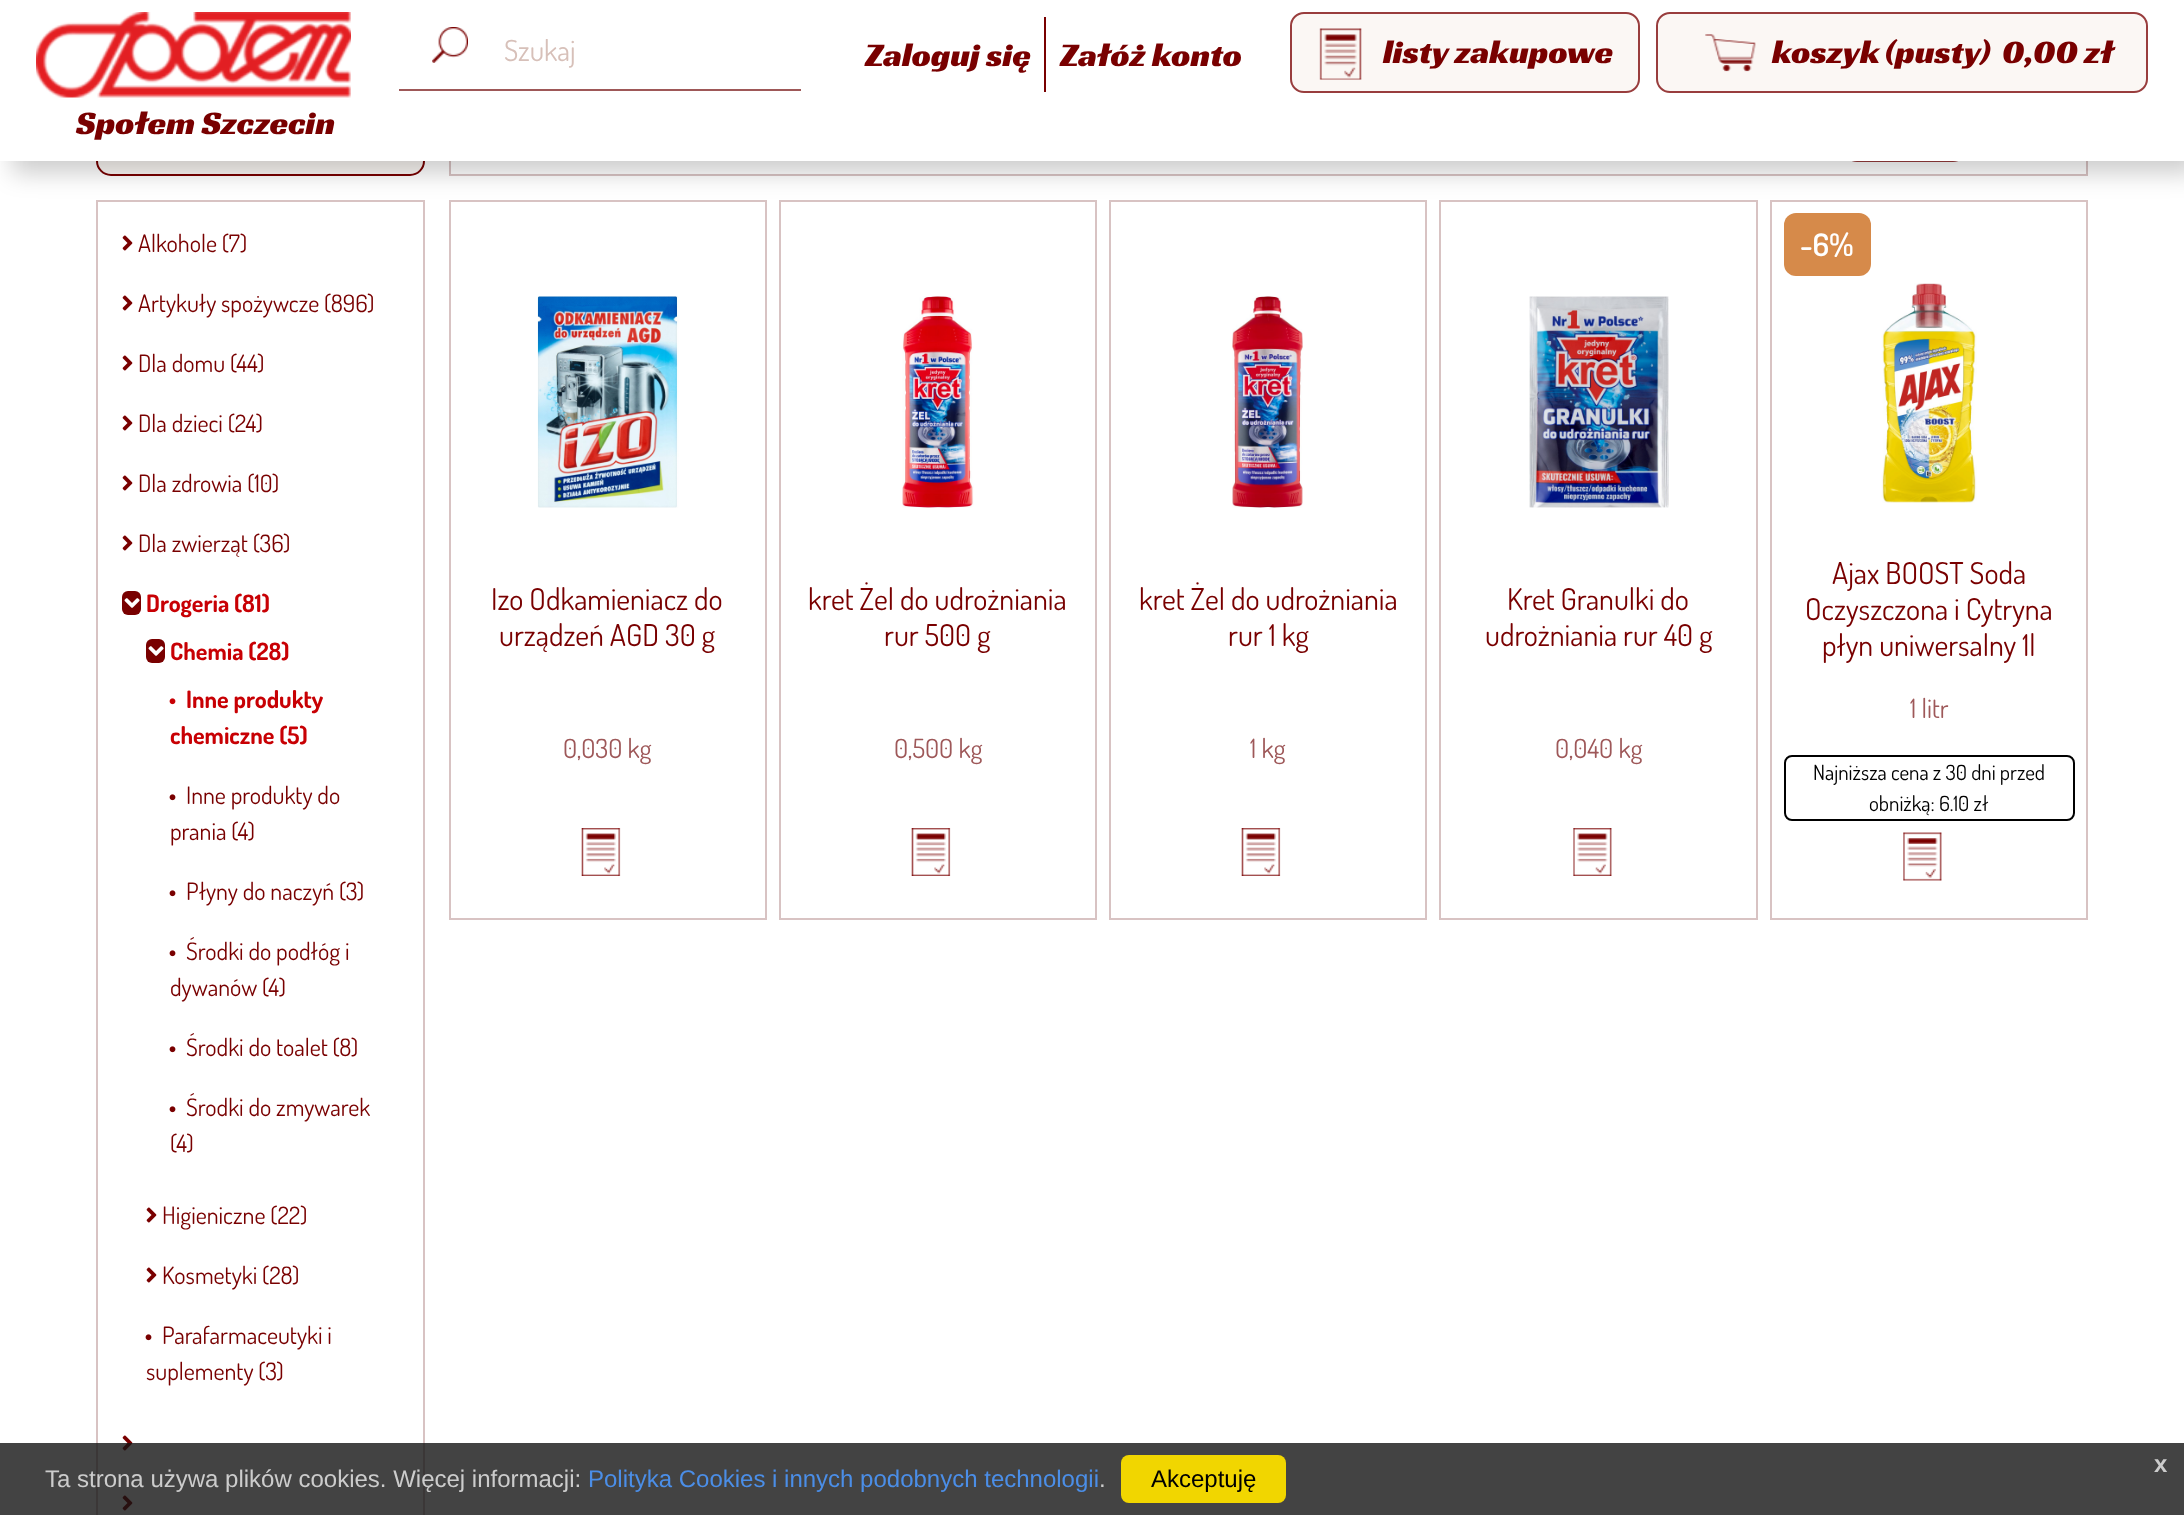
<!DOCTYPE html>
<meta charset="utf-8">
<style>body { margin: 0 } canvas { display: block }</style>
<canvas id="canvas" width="2184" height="1515"></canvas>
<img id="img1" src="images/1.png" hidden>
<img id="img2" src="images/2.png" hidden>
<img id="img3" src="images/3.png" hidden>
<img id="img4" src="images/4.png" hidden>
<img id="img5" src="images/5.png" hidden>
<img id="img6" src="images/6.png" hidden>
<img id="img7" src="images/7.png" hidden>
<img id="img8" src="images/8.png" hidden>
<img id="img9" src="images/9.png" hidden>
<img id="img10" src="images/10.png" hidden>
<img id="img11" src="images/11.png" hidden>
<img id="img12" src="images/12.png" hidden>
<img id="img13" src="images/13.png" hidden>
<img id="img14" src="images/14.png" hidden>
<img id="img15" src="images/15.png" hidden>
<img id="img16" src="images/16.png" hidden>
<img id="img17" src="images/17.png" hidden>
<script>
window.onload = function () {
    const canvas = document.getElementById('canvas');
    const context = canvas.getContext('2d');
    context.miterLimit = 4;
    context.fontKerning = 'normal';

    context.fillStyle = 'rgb(255, 255, 255)';
    context.fillRect(0, 0, 2184, 1515);
    context.fillStyle = 'rgb(251, 247, 244)';
    context.beginPath();
    context.roundRect(97, 91, 327, 84, 14);
    context.fill();
    context.strokeStyle = 'rgb(121, 0, 0)';
    context.lineWidth = 2;
    context.stroke();
    context.strokeStyle = 'rgb(216, 195, 195)';
    context.strokeRect(450, 90, 1637, 85);
    context.beginPath();
    context.roundRect(1846, 103, 118, 58, 11);
    context.strokeStyle = 'rgb(153, 61, 61)';
    context.stroke();
    context.strokeStyle = 'rgb(216, 195, 195)';
    context.strokeRect(97, 201, 327, 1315);
    context.strokeRect(450, 201, 316, 718);
    context.strokeRect(780, 201, 316, 718);
    context.strokeRect(1110, 201, 316, 718);
    context.strokeRect(1440, 201, 317, 718);
    context.strokeRect(1771, 201, 316, 718);
    context.fillStyle = 'rgba(0, 0, 0, 0.2)';
    context.filter = 'blur(12px)';
    context.beginPath();
    context.rect(12, 12, 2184, 161);
    context.fill();
    context.filter = 'none';
    context.fillStyle = 'rgb(255, 255, 255)';
    context.fillRect(0, 0, 2184, 161);
    context.fillStyle = 'rgb(158, 88, 88)';
    context.fillRect(399, 89, 402, 2);
    context.drawImage(document.getElementById('img1'), 432, 27, 36, 36);
    context.fillStyle = 'rgb(121, 0, 0)';
    context.fillRect(1044, 17, 2, 75);
    context.fillStyle = 'rgb(251, 247, 244)';
    context.beginPath();
    context.roundRect(1291, 13, 348, 79, 13);
    context.fill();
    context.strokeStyle = 'rgb(153, 61, 61)';
    context.stroke();
    context.drawImage(document.getElementById('img2'), 1319, 28, 43, 52);
    context.beginPath();
    context.roundRect(1657, 13, 490, 79, 13);
    context.fill();
    context.stroke();
    context.drawImage(document.getElementById('img3'), 1705, 34, 51, 38);
    context.drawImage(document.getElementById('img4'), 36, 12, 315, 86);
    context.drawImage(document.getElementById('img5'), 122, 235, 11, 16);
    context.drawImage(document.getElementById('img5'), 122, 295, 11, 16);
    context.drawImage(document.getElementById('img5'), 122, 355, 11, 16);
    context.drawImage(document.getElementById('img5'), 122, 415, 11, 16);
    context.drawImage(document.getElementById('img5'), 122, 475, 11, 16);
    context.drawImage(document.getElementById('img5'), 122, 535, 11, 16);
    context.fillStyle = 'rgb(121, 0, 0)';
    context.beginPath();
    context.roundRect(122, 591, 19, 24, 6);
    context.fill();
    context.drawImage(document.getElementById('img6'), 124, 598, 16, 10);
    context.beginPath();
    context.roundRect(146, 639, 19, 24, 6);
    context.fill();
    context.drawImage(document.getElementById('img6'), 148, 646, 16, 10);
    context.drawImage(document.getElementById('img7'), 169, 698, 7, 7);
    context.drawImage(document.getElementById('img8'), 169, 794, 7, 7);
    context.drawImage(document.getElementById('img8'), 169, 890, 7, 7);
    context.drawImage(document.getElementById('img8'), 169, 950, 7, 7);
    context.drawImage(document.getElementById('img8'), 169, 1046, 7, 7);
    context.drawImage(document.getElementById('img8'), 169, 1106, 7, 7);
    context.drawImage(document.getElementById('img5'), 146, 1207, 11, 16);
    context.drawImage(document.getElementById('img5'), 146, 1267, 11, 16);
    context.drawImage(document.getElementById('img8'), 145, 1334, 7, 7);
    context.drawImage(document.getElementById('img5'), 122, 1435, 11, 16);
    context.drawImage(document.getElementById('img5'), 122, 1495, 11, 16);
    context.drawImage(document.getElementById('img9'), 537, 296, 142, 212);
    context.drawImage(document.getElementById('img10'), 581, 828, 40, 48);
    context.drawImage(document.getElementById('img11'), 902, 296, 72, 212);
    context.drawImage(document.getElementById('img12'), 911, 828, 40, 48);
    context.drawImage(document.getElementById('img13'), 1232, 296, 71, 212);
    context.drawImage(document.getElementById('img12'), 1241, 828, 40, 48);
    context.drawImage(document.getElementById('img14'), 1529, 296, 140, 212);
    context.drawImage(document.getElementById('img15'), 1573, 828, 39, 48);
    context.fillStyle = 'rgb(214, 138, 74)';
    context.beginPath();
    context.roundRect(1784, 213, 87, 63, 12);
    context.fill();
    context.drawImage(document.getElementById('img16'), 1881, 283, 96, 220);
    context.beginPath();
    context.roundRect(1785, 756, 289, 64, 7);
    context.strokeStyle = 'rgb(0, 0, 0)';
    context.stroke();
    context.drawImage(document.getElementById('img17'), 1903, 832, 39, 49);
    context.fillStyle = 'rgba(20, 20, 20, 0.8)';
    context.fillRect(0, 1443, 2184, 72);
    context.fillStyle = 'rgb(241, 214, 0)';
    context.beginPath();
    context.roundRect(1121, 1455, 165, 48, 8);
    context.fill();
    context.font = '29px Dosis';
    context.fillStyle = 'rgb(215, 192, 185)';
    context.fillText('Szukaj', 504, 61);
    context.font = '33.5px Racing Sans One';
    context.fillStyle = 'rgb(121, 0, 0)';
    context.fillText('Zaloguj się', 865, 66);
    context.fillText('Załóż konto', 1060, 66);
    context.fillText('listy zakupowe', 1383, 63);
    context.fillText('koszyk', 1772, 63);
    context.fillText('(pusty)', 1885, 63);
    context.fillText('0,00 zł', 2002, 63);
    context.fillText('Społem Szczecin', 76, 134);
    context.font = '24px Dosis';
    context.fillText('Alkohole (7)', 138, 252);
    context.fillText('Artykuły spożywcze (896)', 138, 312);
    context.fillText('Dla domu (44)', 138, 372);
    context.fillText('Dla dzieci (24)', 138, 432);
    context.fillText('Dla zdrowia (10)', 138, 492);
    context.fillText('Dla zwierząt (36)', 138, 552);
    context.font = 'bold 24px Dosis';
    context.fillStyle = 'rgb(200, 0, 4)';
    context.fillText('Drogeria (81)', 146, 612);
    context.fillText('Chemia (28)', 170, 660);
    context.fillText('Inne produkty', 186, 708);
    context.fillText('chemiczne (5)', 170, 744);
    context.font = '24px Dosis';
    context.fillStyle = 'rgb(121, 0, 0)';
    context.fillText('Inne produkty do', 186, 804);
    context.fillText('prania (4)', 170, 840);
    context.fillText('Płyny do naczyń (3)', 186, 900);
    context.fillText('Środki do podłóg i', 186, 960);
    context.fillText('dywanów (4)', 170, 996);
    context.fillText('Środki do toalet (8)', 186, 1056);
    context.fillText('Środki do zmywarek', 186, 1116);
    context.fillText('(4)', 170, 1152);
    context.fillText('Higieniczne (22)', 162, 1224);
    context.fillText('Kosmetyki (28)', 162, 1284);
    context.fillText('Parafarmaceutyki i', 162, 1344);
    context.fillText('suplementy (3)', 146, 1380);
    context.font = '30px Dosis';
    context.fillText('Izo Odkamieniacz do', 491, 610);
    context.fillText('urządzeń AGD 30 g', 499, 646);
    context.font = '26.5px Dosis';
    context.fillStyle = 'rgb(158, 88, 89)';
    context.fillText('0,030 kg', 563, 758);
    context.font = '30px Dosis';
    context.fillStyle = 'rgb(121, 0, 0)';
    context.fillText('kret Żel do udrożniania', 808, 610);
    context.fillText('rur 500 g', 884, 646);
    context.font = '26.5px Dosis';
    context.fillStyle = 'rgb(158, 88, 89)';
    context.fillText('0,500 kg', 894, 758);
    context.font = '30px Dosis';
    context.fillStyle = 'rgb(121, 0, 0)';
    context.fillText('kret Żel do udrożniania', 1139, 610);
    context.fillText('rur 1 kg', 1228, 646);
    context.font = '26.5px Dosis';
    context.fillStyle = 'rgb(158, 88, 89)';
    context.fillText('1 kg', 1250, 758);
    context.font = '30px Dosis';
    context.fillStyle = 'rgb(121, 0, 0)';
    context.fillText('Kret Granulki do', 1507, 610);
    context.fillText('udrożniania rur 40 g', 1485, 646);
    context.font = '26.5px Dosis';
    context.fillStyle = 'rgb(158, 88, 89)';
    context.fillText('0,040 kg', 1555, 758);
    context.font = '600 31px Dosis';
    context.fillStyle = 'rgb(255, 255, 255)';
    context.fillText('-6%', 1800, 256);
    context.font = '30px Dosis';
    context.fillStyle = 'rgb(121, 0, 0)';
    context.fillText('Ajax BOOST Soda', 1832, 584);
    context.fillText('Oczyszczona i Cytryna', 1805, 620);
    context.fillText('płyn uniwersalny 1l', 1822, 656);
    context.font = '26.5px Dosis';
    context.fillStyle = 'rgb(158, 88, 89)';
    context.fillText('1 litr', 1910, 718);
    context.font = '21px Dosis';
    context.fillStyle = 'rgb(0, 0, 0)';
    context.fillText('Najniższa cena z 30 dni przed', 1813, 780);
    context.fillText('obniżką: 6.10 zł', 1869, 811);
    context.font = 'bold 24px Liberation Sans';
    context.fillStyle = 'rgb(204, 204, 204)';
    context.fillText('x', 2154, 1472);
    context.font = '24px Liberation Sans';
    context.fillText('Ta strona używa plików cookies. Więcej informacji:', 45, 1487);
    context.fillStyle = 'rgb(75, 142, 231)';
    context.fillText('Polityka Cookies i innych podobnych technologii', 588, 1487);
    context.fillStyle = 'rgb(204, 204, 204)';
    context.fillText('.', 1099, 1487);
    context.fillStyle = 'rgb(0, 0, 0)';
    context.fillText('Akceptuję', 1151, 1487);
};
</script>
